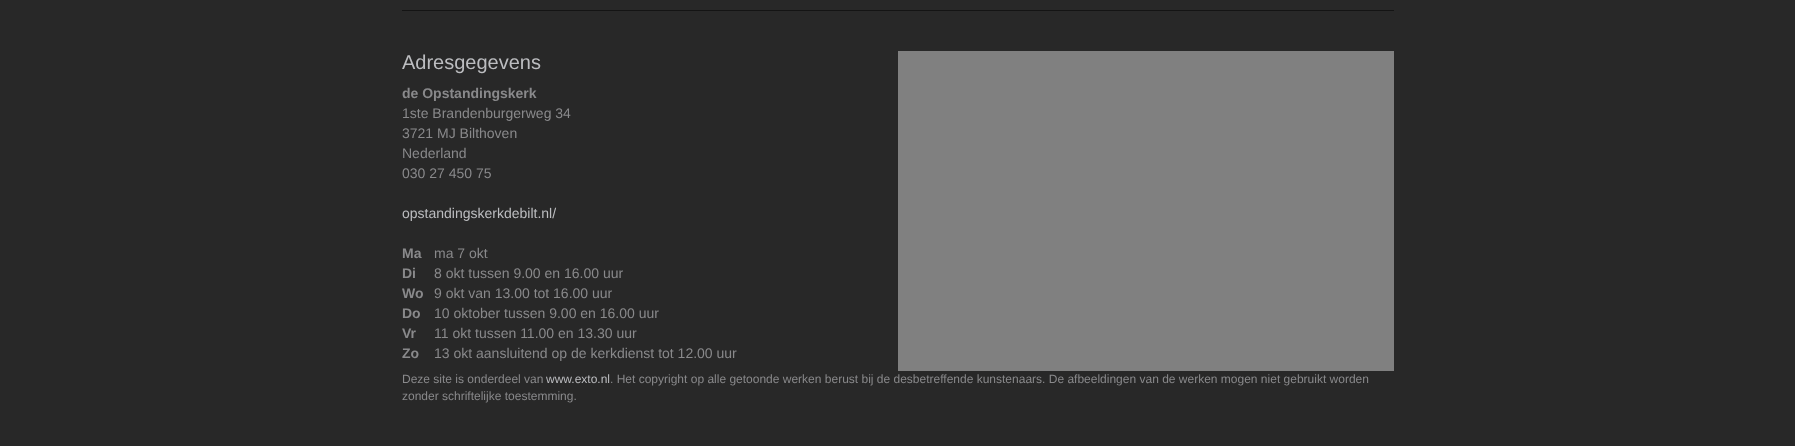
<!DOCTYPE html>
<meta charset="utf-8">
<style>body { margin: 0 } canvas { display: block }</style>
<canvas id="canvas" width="1795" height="446"></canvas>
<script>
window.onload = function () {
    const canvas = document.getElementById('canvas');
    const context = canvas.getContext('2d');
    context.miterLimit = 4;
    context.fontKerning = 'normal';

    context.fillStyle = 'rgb(40, 40, 40)';
    context.fillRect(0, 0, 1795, 446);
    context.fillStyle = 'rgb(20, 20, 20)';
    context.fillRect(402, 10, 992, 1);
    context.fillStyle = 'rgb(128, 128, 128)';
    context.fillRect(898, 51, 496, 320);
    context.font = '20px Liberation Sans';
    context.fillStyle = 'rgb(188, 189, 192)';
    context.fillText('Adresgegevens', 402, 69);
    context.font = 'bold 14px Liberation Sans';
    context.fillStyle = 'rgb(137, 137, 139)';
    context.fillText('de Opstandingskerk', 402, 98);
    context.font = '14px Liberation Sans';
    context.fillText('1ste Brandenburgerweg 34', 402, 118);
    context.fillText('3721 MJ Bilthoven', 402, 138);
    context.fillText('Nederland', 402, 158);
    context.fillText('030 27 450 75', 402, 178);
    context.fillStyle = 'rgb(188, 189, 192)';
    context.fillText('opstandingskerkdebilt.nl/', 402, 218);
    context.font = 'bold 14px Liberation Sans';
    context.fillStyle = 'rgb(137, 137, 139)';
    context.fillText('Ma', 402, 258);
    context.font = '14px Liberation Sans';
    context.fillText('ma 7 okt', 434, 258);
    context.font = 'bold 14px Liberation Sans';
    context.fillText('Di', 402, 278);
    context.font = '14px Liberation Sans';
    context.fillText('8 okt tussen 9.00 en 16.00 uur', 434, 278);
    context.font = 'bold 14px Liberation Sans';
    context.fillText('Wo', 402, 298);
    context.font = '14px Liberation Sans';
    context.fillText('9 okt van 13.00 tot 16.00 uur', 434, 298);
    context.font = 'bold 14px Liberation Sans';
    context.fillText('Do', 402, 318);
    context.font = '14px Liberation Sans';
    context.fillText('10 oktober tussen 9.00 en 16.00 uur', 434, 318);
    context.font = 'bold 14px Liberation Sans';
    context.fillText('Vr', 402, 338);
    context.font = '14px Liberation Sans';
    context.fillText('11 okt tussen 11.00 en 13.30 uur', 434, 338);
    context.font = 'bold 14px Liberation Sans';
    context.fillText('Zo', 402, 358);
    context.font = '14px Liberation Sans';
    context.fillText('13 okt aansluitend op de kerkdienst tot 12.00 uur', 434, 358);
    context.font = '12px Liberation Sans';
    context.fillText('Deze site is onderdeel van', 402, 383);
    context.fillStyle = 'rgb(188, 189, 192)';
    context.fillText('www.exto.nl', 546, 383);
    context.fillStyle = 'rgb(137, 137, 139)';
    context.fillText('. Het copyright op alle getoonde werken berust bij de desbetreffende kunstenaars. De afbeeldingen van de werken mogen niet gebruikt worden', 610, 383);
    context.fillText('zonder schriftelijke toestemming.', 402, 400);
};
</script>
